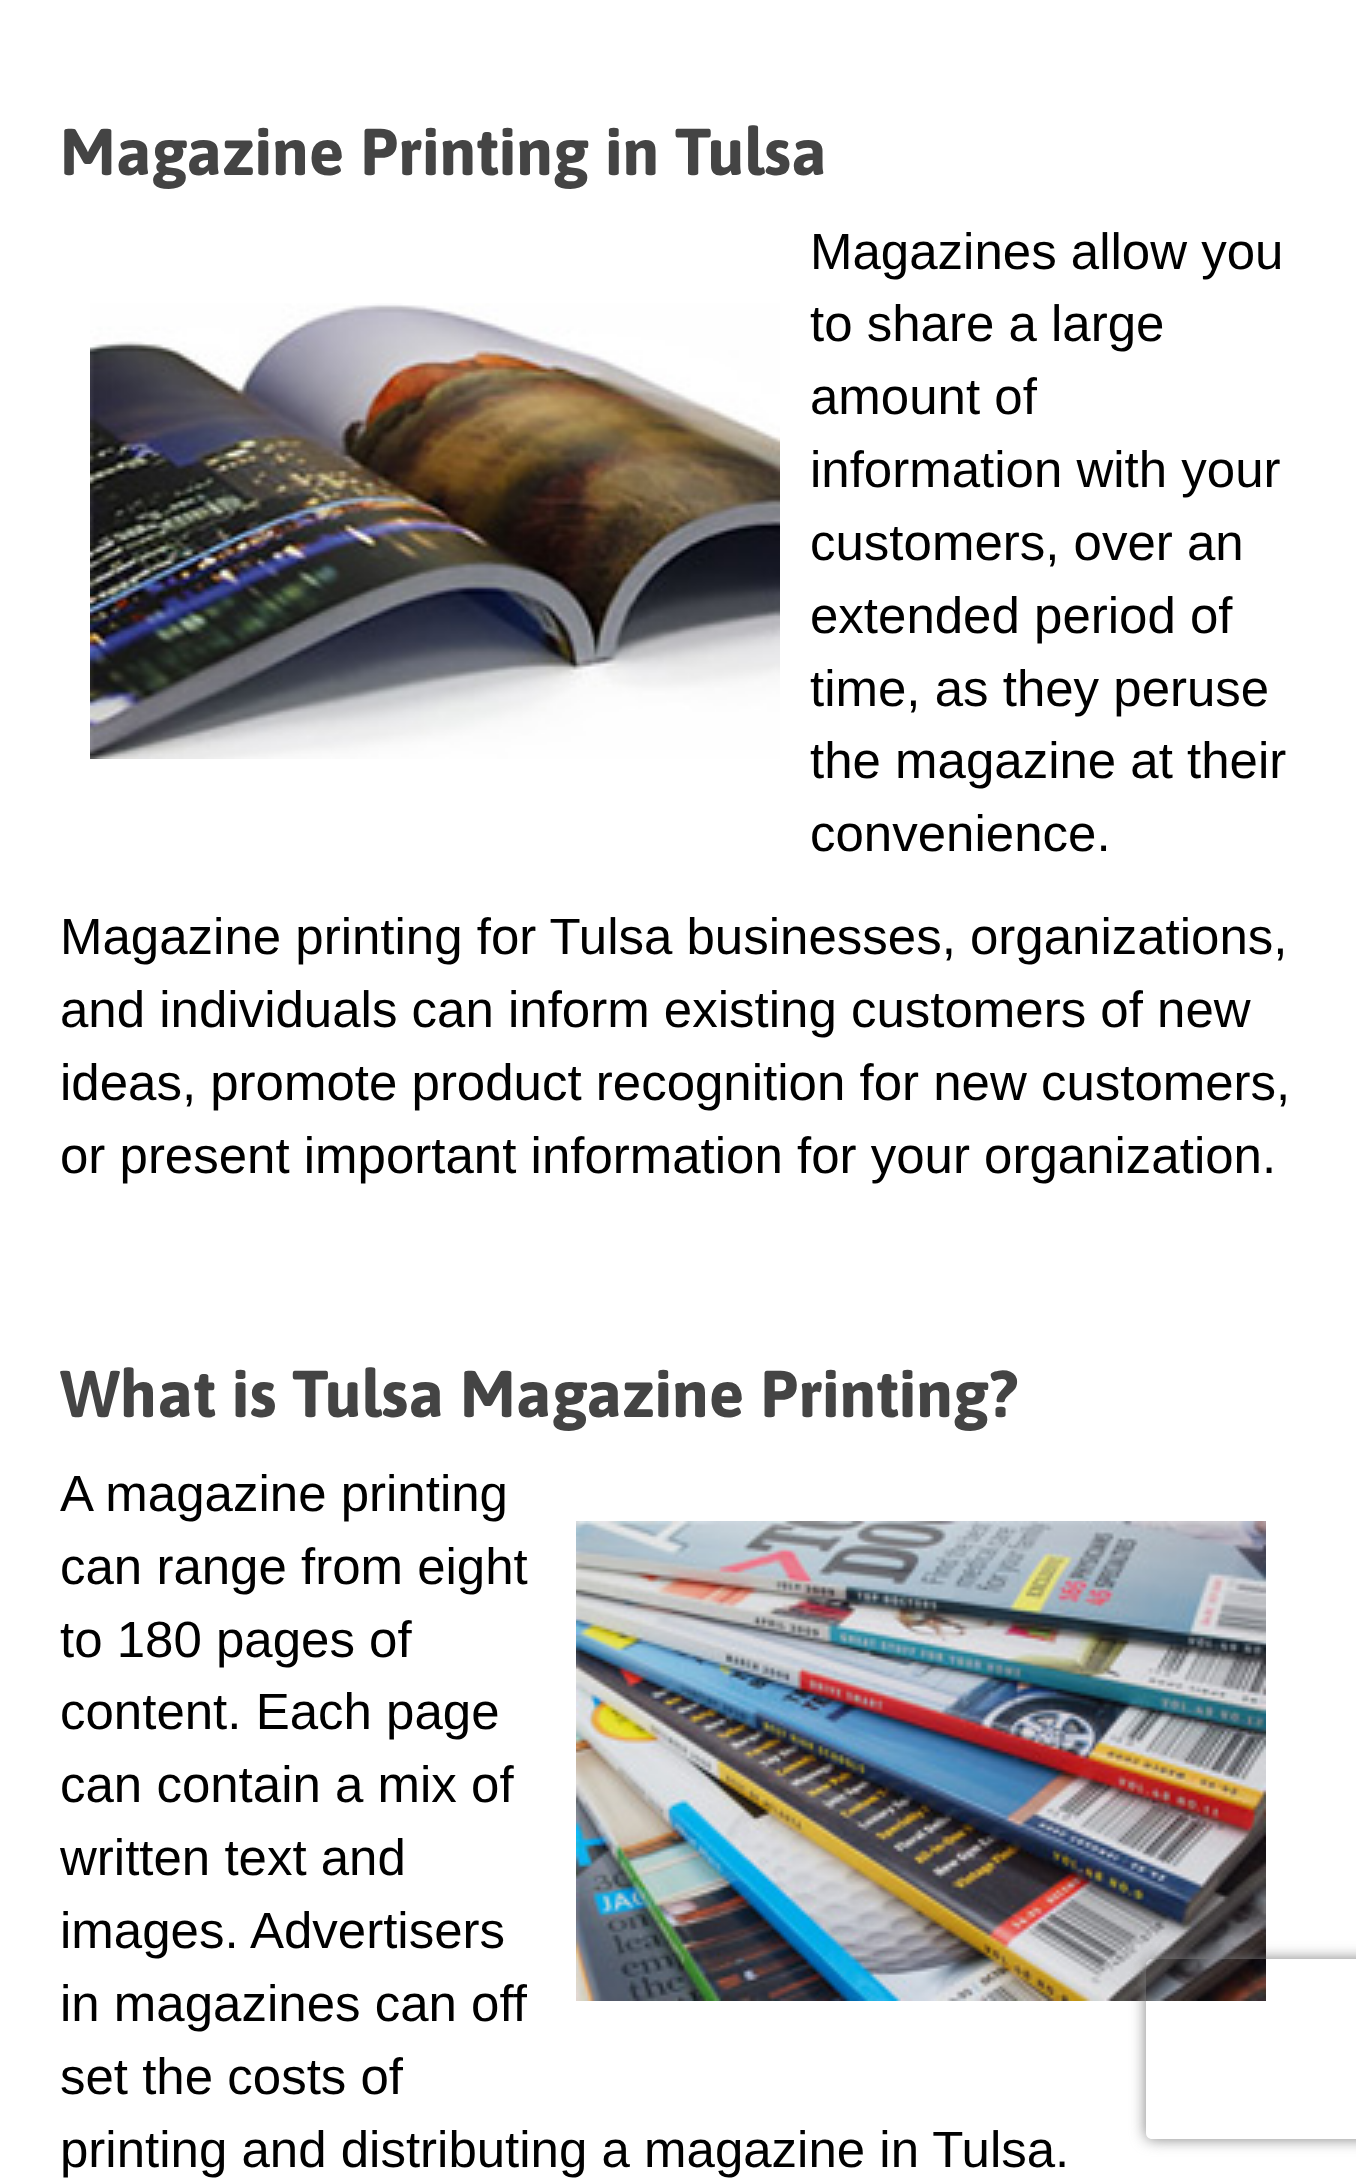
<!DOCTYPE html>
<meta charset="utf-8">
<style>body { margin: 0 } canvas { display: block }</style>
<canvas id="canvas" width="1356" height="2181"></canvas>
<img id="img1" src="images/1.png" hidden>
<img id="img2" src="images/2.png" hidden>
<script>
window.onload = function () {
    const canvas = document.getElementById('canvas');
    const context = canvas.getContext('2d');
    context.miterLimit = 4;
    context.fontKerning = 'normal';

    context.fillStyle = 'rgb(255, 255, 255)';
    context.fillRect(0, 0, 1356, 2181);
    context.drawImage(document.getElementById('img1'), 90, 303, 690, 456);
    context.drawImage(document.getElementById('img2'), 576, 1521, 690, 480);
    context.save();
    context.beginPath();
    context.moveTo(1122, 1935);
    context.lineTo(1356, 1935);
    context.lineTo(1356, 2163);
    context.lineTo(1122, 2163);
    context.closePath();
    context.moveTo(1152, 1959);
    context.lineTo(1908, 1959);
    context.bezierCurveTo(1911.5, 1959, 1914, 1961.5, 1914, 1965);
    context.lineTo(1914, 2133);
    context.bezierCurveTo(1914, 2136.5, 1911.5, 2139, 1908, 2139);
    context.lineTo(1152, 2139);
    context.bezierCurveTo(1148.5, 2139, 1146, 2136.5, 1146, 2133);
    context.lineTo(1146, 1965);
    context.bezierCurveTo(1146, 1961.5, 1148.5, 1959, 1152, 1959);
    context.closePath();
    context.clip('evenodd');
    context.fillStyle = 'rgb(128, 128, 128)';
    context.filter = 'blur(7.5px)';
    context.beginPath();
    context.roundRect(1146, 1959, 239, 180, 6);
    context.fill();
    context.filter = 'none';
    context.restore();
    context.font = 'bold 66px Asap';
    context.fillStyle = 'rgb(68, 68, 68)';
    context.fillText('Magazine Printing in Tulsa', 60, 175);
    context.font = '51px Liberation Sans';
    context.fillStyle = 'rgb(0, 0, 0)';
    context.fillText('Magazines allow you', 810, 269);
    context.fillText('to share a large', 810, 341);
    context.fillText('amount of', 810, 414);
    context.fillText('information with your', 810, 487);
    context.fillText('customers, over an', 810, 560);
    context.fillText('extended period of', 810, 633);
    context.fillText('time, as they peruse', 810, 706);
    context.fillText('the magazine at their', 810, 778);
    context.fillText('convenience.', 810, 851);
    context.fillText('Magazine printing for Tulsa businesses, organizations,', 60, 954);
    context.fillText('and individuals can inform existing customers of new', 60, 1027);
    context.fillText('ideas, promote product recognition for new customers,', 60, 1100);
    context.fillText('or present important information for your organization.', 60, 1173);
    context.font = 'bold 66px Asap';
    context.fillStyle = 'rgb(68, 68, 68)';
    context.fillText('What is Tulsa Magazine Printing?', 60, 1417);
    context.font = '51px Liberation Sans';
    context.fillStyle = 'rgb(0, 0, 0)';
    context.fillText('A magazine printing', 60, 1511);
    context.fillText('can range from eight', 60, 1584);
    context.fillText('to 180 pages of', 60, 1657);
    context.fillText('content. Each page', 60, 1729);
    context.fillText('can contain a mix of', 60, 1802);
    context.fillText('written text and', 60, 1875);
    context.fillText('images. Advertisers', 60, 1948);
    context.fillText('in magazines can off', 60, 2021);
    context.fillText('set the costs of', 60, 2094);
    context.fillText('printing and distributing a magazine in Tulsa.', 60, 2167);
};
</script>
